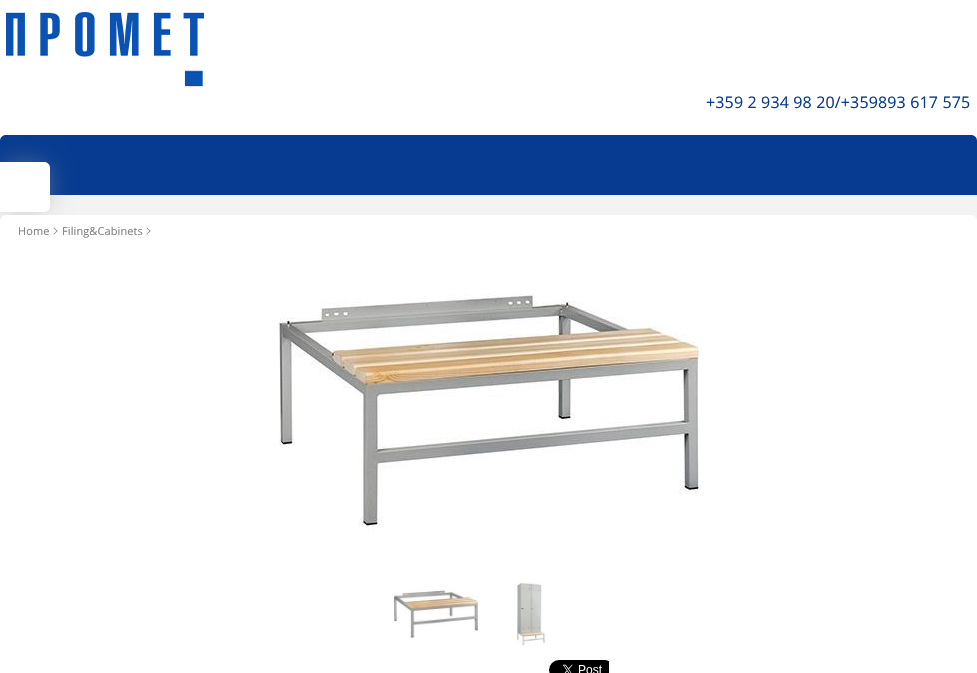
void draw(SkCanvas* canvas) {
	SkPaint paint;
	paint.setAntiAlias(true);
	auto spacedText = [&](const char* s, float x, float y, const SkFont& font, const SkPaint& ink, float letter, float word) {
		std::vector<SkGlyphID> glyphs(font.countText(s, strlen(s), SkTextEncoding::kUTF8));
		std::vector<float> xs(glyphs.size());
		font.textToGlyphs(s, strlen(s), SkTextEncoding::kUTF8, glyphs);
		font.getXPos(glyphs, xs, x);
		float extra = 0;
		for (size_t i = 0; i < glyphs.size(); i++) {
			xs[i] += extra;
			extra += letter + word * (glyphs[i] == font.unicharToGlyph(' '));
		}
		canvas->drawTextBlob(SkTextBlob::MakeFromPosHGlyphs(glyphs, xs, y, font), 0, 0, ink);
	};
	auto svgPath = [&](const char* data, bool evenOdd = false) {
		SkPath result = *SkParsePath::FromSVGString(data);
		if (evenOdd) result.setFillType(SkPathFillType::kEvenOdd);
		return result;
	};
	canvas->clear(0xfff3f3f3);
	paint.setColor(0xffffffff);
	canvas->drawRect(SkRect::MakeXYWH(0, 0, 977, 141), paint);
	canvas->drawImageRect(SkImages::DeferredFromEncodedData(SkData::MakeFromFileName("img1.png")), SkRect::MakeXYWH(6, 12, 198, 75), SkSamplingOptions());
	SkFont f1(fontMgr->matchFamilyStyle("Open Sans", SkFontStyle::Normal()), 16);
	f1.setSubpixel(true);
	paint.setColor(0xff063b91);
	spacedText("+359 2 934 98 20/+359893 617 575", 706, 108, f1, paint, 0.15, 0);
	canvas->drawPath(svgPath("M6 135H971C974.5 135 977 137.5 977 141V195H0V141C0 137.5 2.5 135 6 135Z"), paint);
	paint.setColor(0xff999999);
	paint.setMaskFilter(SkMaskFilter::MakeBlur(kNormal_SkBlurStyle, 15));
	canvas->drawRect(SkRect::MakeXYWH(8, 170, 34, 34), paint);
	paint.setMaskFilter(nullptr);
	paint.setColor(0xffffffff);
	canvas->drawPath(svgPath("M0 162H44C47.5 162 50 164.5 50 168V206C50 209.5 47.5 212 44 212H0Z"), paint);
	canvas->drawRoundRect(SkRect::MakeXYWH(0, 215, 977, 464), 6, 6, paint);
	SkFont f2(fontMgr->matchFamilyStyle("Open Sans", SkFontStyle::Normal()), 11);
	f2.setSubpixel(true);
	paint.setColor(0xff808080);
	spacedText("Home", 18, 235, f2, paint, 0.1, 0);
	canvas->drawPath(svgPath("M53.5 228L54 227.5L57.5 231L57 231.5Z"), paint);
	canvas->drawPath(svgPath("M53.5 234L57 230.5L57.5 231L54 234.5Z"), paint);
	spacedText("Filing&Cabinets", 62, 235, f2, paint, 0.1, 0);
	canvas->drawPath(svgPath("M146.5 228L147 227.5L150.5 231L150 231.5Z"), paint);
	canvas->drawPath(svgPath("M146.5 234L150 230.5L150.5 231L147 234.5Z"), paint);
	canvas->drawImageRect(SkImages::DeferredFromEncodedData(SkData::MakeFromFileName("img2.png")), SkRect::MakeXYWH(279, 293, 420, 239), SkSamplingOptions());
	canvas->drawImageRect(SkImages::DeferredFromEncodedData(SkData::MakeFromFileName("img3.png")), SkRect::MakeXYWH(394, 589, 84, 49), SkSamplingOptions());
	canvas->drawImageRect(SkImages::DeferredFromEncodedData(SkData::MakeFromFileName("img4.png")), SkRect::MakeXYWH(517, 582, 29, 64), SkSamplingOptions());
	canvas->drawImageRect(SkImages::DeferredFromEncodedData(SkData::MakeFromFileName("img5.png")), SkRect::MakeXYWH(549, 660, 60, 13), SkSamplingOptions());
}
